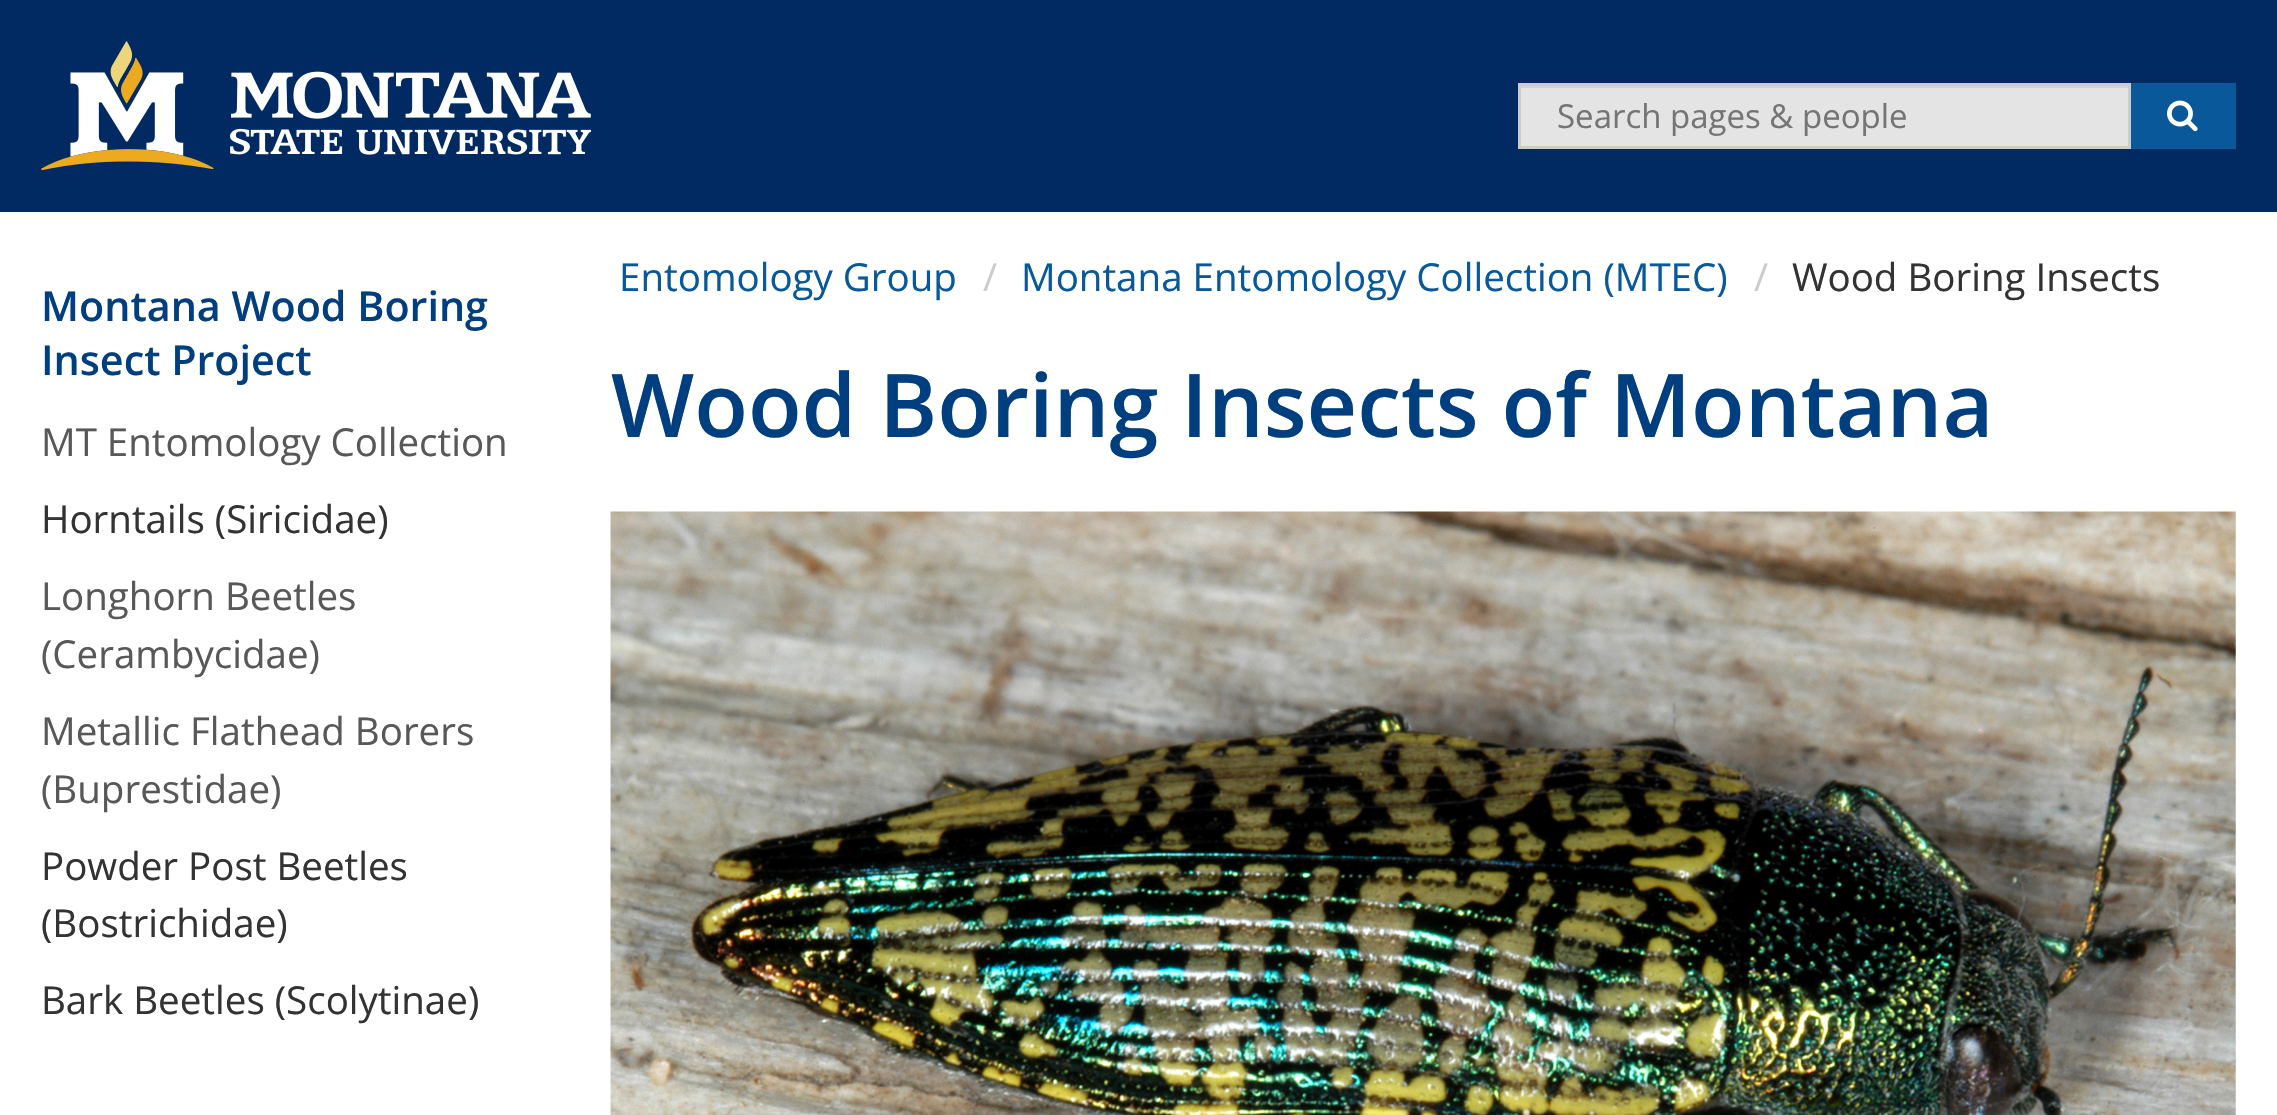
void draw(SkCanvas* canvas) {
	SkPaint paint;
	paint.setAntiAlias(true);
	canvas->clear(0xffffffff);
	paint.setColor(0xff002a61);
	canvas->drawRect(SkRect::MakeXYWH(0, 0, 2277, 212), paint);
	canvas->drawImageRect(SkImages::DeferredFromEncodedData(SkData::MakeFromFileName("img1.png")), SkRect::MakeXYWH(41, 41, 550, 130), SkSamplingOptions());
	paint.setColor(0xffe4e4e4);
	canvas->drawRect(SkRect::MakeXYWH(1521, 88, 607, 58), paint);
	paint.setColor(0xffd3d3d3);
	canvas->drawRect(SkRect::MakeXYWH(1521, 86, 608, 2), paint);
	paint.setStroke(true);
	paint.setStrokeWidth(3);
	paint.setColor(0xffcccccc);
	canvas->drawRect(SkRect::MakeXYWH(1519.5, 84.5, 610, 63), paint);
	SkFont f1(fontMgr->matchFamilyStyle("Open Sans", SkFontStyle::Normal()), 33);
	f1.setSubpixel(true);
	paint.setStroke(false);
	paint.setColor(0xff757575);
	canvas->drawString("Search pages & people", 1557, 128, f1, paint);
	paint.setColor(0xff09589a);
	canvas->drawRect(SkRect::MakeXYWH(2131, 83, 105, 66), paint);
	canvas->drawImageRect(SkImages::DeferredFromEncodedData(SkData::MakeFromFileName("img2.png")), SkRect::MakeXYWH(2167, 100, 31, 32), SkSamplingOptions());
	SkFont f2(fontMgr->matchFamilyStyle("Open Sans", SkFontStyle(600, SkFontStyle::kNormal_Width, SkFontStyle::kUpright_Slant)), 41.25);
	f2.setSubpixel(true);
	paint.setColor(0xff003f7f);
	canvas->drawString("Montana Wood Boring", 41, 321, f2, paint);
	canvas->drawString("Insect Project", 41, 375, f2, paint);
	SkFont f3(fontMgr->matchFamilyStyle("Open Sans", SkFontStyle::Normal()), 38.5);
	f3.setSubpixel(true);
	paint.setColor(0xff585858);
	canvas->drawString("MT Entomology Collection", 41, 456, f3, paint);
	paint.setColor(0xff333333);
	canvas->drawString("Horntails (Siricidae)", 41, 533, f3, paint);
	paint.setColor(0xff585858);
	canvas->drawString("Longhorn Beetles", 41, 610, f3, paint);
	canvas->drawString("(Cerambycidae)", 41, 668, f3, paint);
	canvas->drawString("Metallic Flathead Borers", 41, 745, f3, paint);
	canvas->drawString("(Buprestidae)", 41, 803, f3, paint);
	paint.setColor(0xff333333);
	canvas->drawString("Powder Post Beetles", 41, 880, f3, paint);
	canvas->drawString("(Bostrichidae)", 41, 937, f3, paint);
	canvas->drawString("Bark Beetles (Scolytinae)", 41, 1014, f3, paint);
	paint.setColor(0xff09589a);
	canvas->drawString("Entomology Group", 619, 291, f3, paint);
	paint.setColor(0xffcccccc);
	canvas->drawString("/", 983, 291, f3, paint);
	paint.setColor(0xff09589a);
	canvas->drawString("Montana Entomology Collection (MTEC)", 1021, 291, f3, paint);
	paint.setColor(0xffcccccc);
	canvas->drawString("/", 1754, 291, f3, paint);
	paint.setColor(0xff333333);
	canvas->drawString("Wood Boring Insects", 1792, 291, f3, paint);
	SkFont f4(fontMgr->matchFamilyStyle("Open Sans", SkFontStyle(600, SkFontStyle::kNormal_Width, SkFontStyle::kUpright_Slant)), 88);
	f4.setSubpixel(true);
	paint.setColor(0xff003f7f);
	canvas->drawString("Wood Boring Insects of Montana", 611, 437, f4, paint);
	canvas->drawImageRect(SkImages::DeferredFromEncodedData(SkData::MakeFromFileName("img3.png")), SkRect::MakeXYWH(610, 511, 1626, 604), SkSamplingOptions());
}
